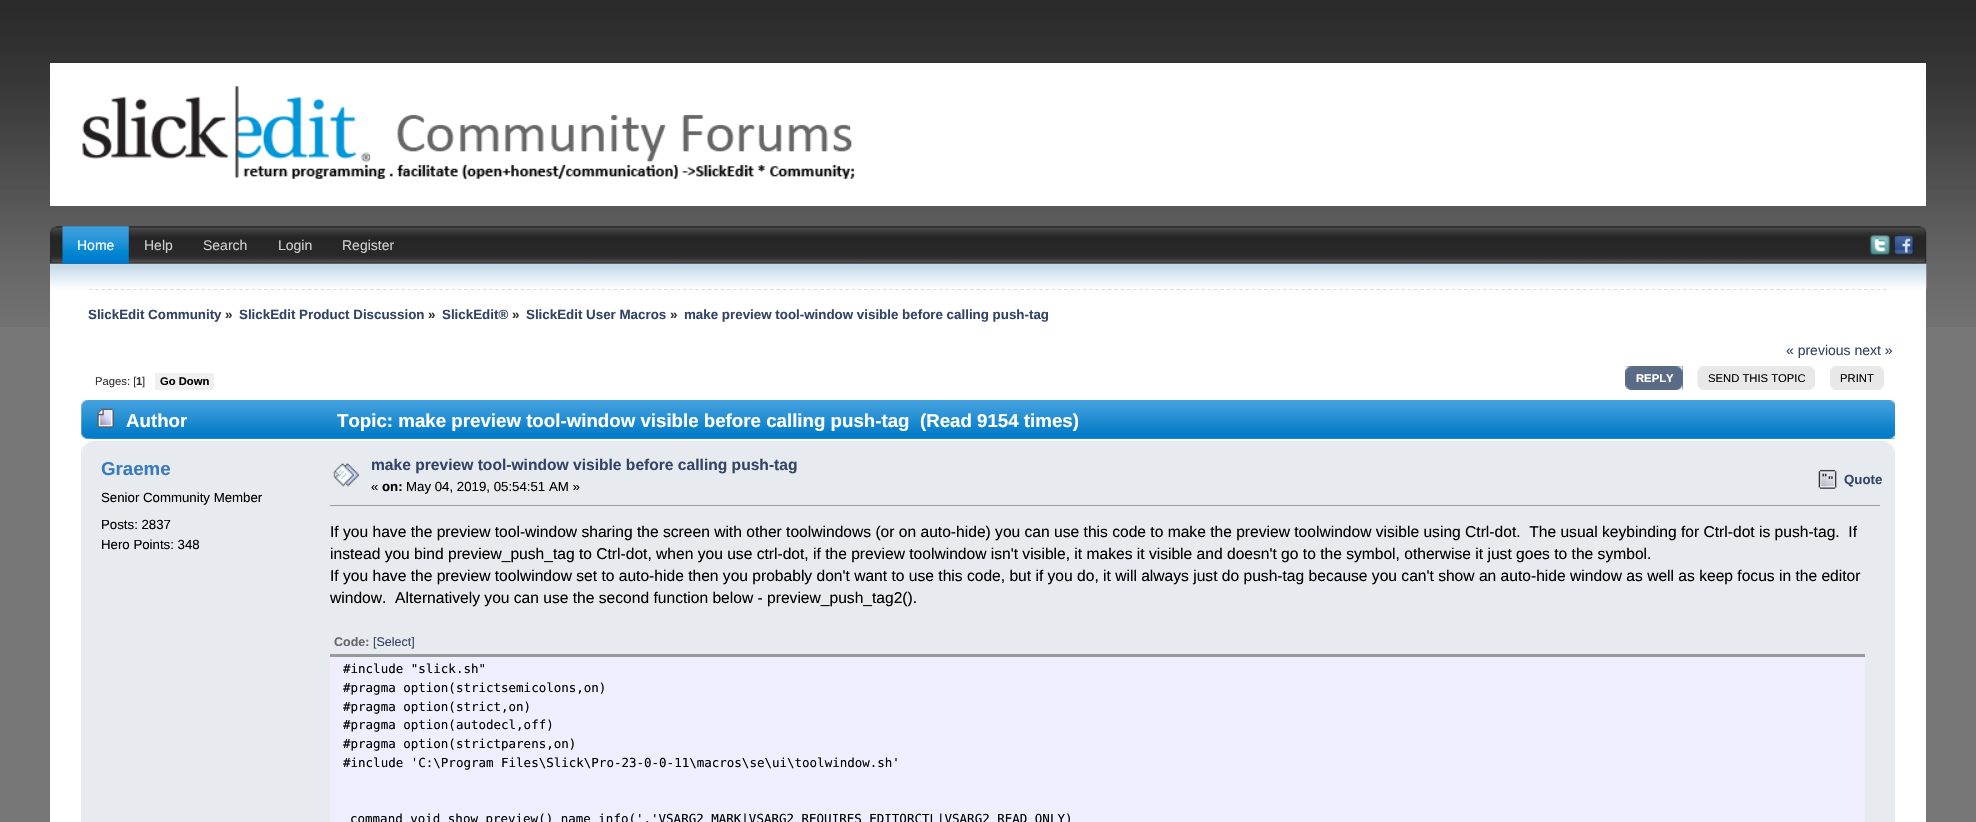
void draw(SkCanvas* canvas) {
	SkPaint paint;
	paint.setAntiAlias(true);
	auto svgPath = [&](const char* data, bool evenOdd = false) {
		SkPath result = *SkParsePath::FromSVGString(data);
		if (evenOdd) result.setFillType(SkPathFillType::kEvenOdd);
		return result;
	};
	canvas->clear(0xff777777);
	canvas->drawImageRect(SkImages::DeferredFromEncodedData(SkData::MakeFromFileName("img1.png")), SkRect::MakeXYWH(0, 0, 1976, 327), SkSamplingOptions());
	paint.setColor(0xffffffff);
	canvas->drawRect(SkRect::MakeXYWH(50, 63, 1876, 143), paint);
	canvas->drawImageRect(SkImages::DeferredFromEncodedData(SkData::MakeFromFileName("img2.png")), SkRect::MakeXYWH(82, 86, 774, 93), SkSamplingOptions());
	canvas->drawImageRect(SkImages::DeferredFromEncodedData(SkData::MakeFromFileName("img3.png")), SkRect::MakeXYWH(50, 226, 14, 38), SkSamplingOptions());
	canvas->drawImageRect(SkImages::DeferredFromEncodedData(SkData::MakeFromFileName("img4.png")), SkRect::MakeXYWH(1912, 226, 15, 38), SkSamplingOptions());
	canvas->drawImageRect(SkImages::DeferredFromEncodedData(SkData::MakeFromFileName("img5.png")), SkRect::MakeXYWH(62, 226, 1852, 38), SkSamplingOptions());
	canvas->drawRect(SkRect::MakeXYWH(50, 288, 1876, 534), paint);
	canvas->drawImageRect(SkImages::DeferredFromEncodedData(SkData::MakeFromFileName("img9.png")), SkRect::MakeXYWH(50, 263, 1877, 26), SkSamplingOptions());
	canvas->drawImageRect(SkImages::DeferredFromEncodedData(SkData::MakeFromFileName("img6.png")), SkRect::MakeXYWH(62, 226, 67, 38), SkSamplingOptions());
	SkFont f1(fontMgr->matchFamilyStyle("Liberation Sans", SkFontStyle::Normal()), 14);
	f1.setSubpixel(true);
	canvas->drawString("Home", 77, 250, f1, paint);
	paint.setColor(0xffcecece);
	canvas->drawString("Help", 144, 250, f1, paint);
	canvas->drawString("Search", 203, 250, f1, paint);
	canvas->drawString("Login", 278, 250, f1, paint);
	canvas->drawString("Register", 342, 250, f1, paint);
	canvas->drawImageRect(SkImages::DeferredFromEncodedData(SkData::MakeFromFileName("img7.png")), SkRect::MakeXYWH(1870, 235, 20, 20), SkSamplingOptions());
	canvas->drawImageRect(SkImages::DeferredFromEncodedData(SkData::MakeFromFileName("img8.png")), SkRect::MakeXYWH(1893, 235, 21, 20), SkSamplingOptions());
	paint.setStroke(true);
	paint.setStrokeWidth(1.2);
	paint.setColor(0xffdddddd);
	paint.setPathEffect(SkDashPathEffect::Make({{3.75f, 2.5f}}, 0));
	canvas->drawPath(svgPath("M89 289.5H1887.5"), paint);
	paint.setPathEffect(nullptr);
	SkFont f2(fontMgr->matchFamilyStyle("Liberation Sans", SkFontStyle::Bold()), 13.35);
	f2.setSubpixel(true);
	paint.setStroke(false);
	paint.setColor(0xff334466);
	canvas->drawString("SlickEdit Community", 88, 319, f2, paint);
	paint.setColor(0xff333333);
	canvas->drawString("»", 225, 319, f2, paint);
	paint.setColor(0xff334466);
	canvas->drawString("SlickEdit Product Discussion", 239, 319, f2, paint);
	paint.setColor(0xff333333);
	canvas->drawString("»", 428, 319, f2, paint);
	paint.setColor(0xff334466);
	canvas->drawString("SlickEdit®", 442, 319, f2, paint);
	paint.setColor(0xff333333);
	canvas->drawString("»", 512, 319, f2, paint);
	paint.setColor(0xff334466);
	canvas->drawString("SlickEdit User Macros", 526, 319, f2, paint);
	paint.setColor(0xff333333);
	canvas->drawString("»", 670, 319, f2, paint);
	paint.setColor(0xff334466);
	canvas->drawString("make preview tool-window visible before calling push-tag", 684, 319, f2, paint);
	canvas->drawString("« previous next »", 1786, 355, f1, paint);
	SkFont f3(fontMgr->matchFamilyStyle("Liberation Sans", SkFontStyle::Normal()), 11.25);
	f3.setSubpixel(true);
	paint.setColor(0xff333333);
	canvas->drawString("Pages: [", 95, 385, f3, paint);
	SkFont f4(fontMgr->matchFamilyStyle("Liberation Sans", SkFontStyle::Bold()), 11.25);
	f4.setSubpixel(true);
	canvas->drawString("1", 136, 385, f4, paint);
	canvas->drawString("]", 142, 385, f3, paint);
	paint.setColor(0xfff0f0f0);
	canvas->drawRect(SkRect::MakeXYWH(155, 373, 59, 17), paint);
	paint.setColor(0xff000000);
	canvas->drawString("Go Down", 160, 385, f4, paint);
	paint.setColor(0xff5a6c85);
	canvas->drawRect(SkRect::MakeXYWH(1625, 366, 58, 24), paint);
	canvas->drawImageRect(SkImages::DeferredFromEncodedData(SkData::MakeFromFileName("img10.png")), SkRect::MakeXYWH(1625, 366, 7, 24), SkSamplingOptions());
	canvas->drawImageRect(SkImages::DeferredFromEncodedData(SkData::MakeFromFileName("img11.png")), SkRect::MakeXYWH(1676, 366, 7, 24), SkSamplingOptions());
	paint.setColor(0xffffffff);
	canvas->drawString("REPLY", 1636, 382, f4, paint);
	paint.setColor(0xffe8e8e8);
	canvas->drawRect(SkRect::MakeXYWH(1698, 366, 117, 24), paint);
	canvas->drawImageRect(SkImages::DeferredFromEncodedData(SkData::MakeFromFileName("img12.png")), SkRect::MakeXYWH(1697, 366, 5, 24), SkSamplingOptions());
	canvas->drawImageRect(SkImages::DeferredFromEncodedData(SkData::MakeFromFileName("img13.png")), SkRect::MakeXYWH(1810, 366, 5, 24), SkSamplingOptions());
	paint.setColor(0xff000000);
	canvas->drawString("SEND THIS TOPIC", 1708, 382, f3, paint);
	paint.setColor(0xffe8e8e8);
	canvas->drawRect(SkRect::MakeXYWH(1830, 366, 54, 24), paint);
	canvas->drawImageRect(SkImages::DeferredFromEncodedData(SkData::MakeFromFileName("img14.png")), SkRect::MakeXYWH(1830, 366, 5, 24), SkSamplingOptions());
	canvas->drawImageRect(SkImages::DeferredFromEncodedData(SkData::MakeFromFileName("img15.png")), SkRect::MakeXYWH(1879, 366, 5, 24), SkSamplingOptions());
	paint.setColor(0xff000000);
	canvas->drawString("PRINT", 1840, 382, f3, paint);
	canvas->drawImageRect(SkImages::DeferredFromEncodedData(SkData::MakeFromFileName("img16.png")), SkRect::MakeXYWH(81, 400, 1814, 39), SkSamplingOptions());
	canvas->drawImageRect(SkImages::DeferredFromEncodedData(SkData::MakeFromFileName("img17.png")), SkRect::MakeXYWH(92, 400, 1803, 39), SkSamplingOptions());
	canvas->drawImageRect(SkImages::DeferredFromEncodedData(SkData::MakeFromFileName("img18.png")), SkRect::MakeXYWH(97, 408, 17, 20), SkSamplingOptions());
	SkFont f5(fontMgr->matchFamilyStyle("Liberation Sans", SkFontStyle::Bold()), 18.7);
	f5.setSubpixel(true);
	paint.setColor(0xffffffff);
	canvas->drawString("Author", 126, 427, f5, paint);
	canvas->drawString("Topic: make preview tool-window visible before calling push-tag  (Read 9154 times)", 337, 427, f5, paint);
	paint.setColor(0xffe7eaef);
	canvas->drawRect(SkRect::MakeXYWH(81, 441, 1814, 381), paint);
	canvas->drawImageRect(SkImages::DeferredFromEncodedData(SkData::MakeFromFileName("img19.png")), SkRect::MakeXYWH(81, 441, 10, 10), SkSamplingOptions());
	canvas->drawImageRect(SkImages::DeferredFromEncodedData(SkData::MakeFromFileName("img20.png")), SkRect::MakeXYWH(1886, 441, 9, 10), SkSamplingOptions());
	paint.setColor(0xff377abd);
	canvas->drawString("Graeme", 101, 475, f5, paint);
	SkFont f6(fontMgr->matchFamilyStyle("Liberation Sans", SkFontStyle::Normal()), 13.25);
	f6.setSubpixel(true);
	paint.setColor(0xff000000);
	canvas->drawString("Senior Community Member", 101, 502, f6, paint);
	canvas->drawString("Posts: 2837", 101, 529, f6, paint);
	canvas->drawString("Hero Points: 348", 101, 549, f6, paint);
	canvas->drawImageRect(SkImages::DeferredFromEncodedData(SkData::MakeFromFileName("img21.png")), SkRect::MakeXYWH(333, 463, 26, 24), SkSamplingOptions());
	SkFont f7(fontMgr->matchFamilyStyle("Liberation Sans", SkFontStyle::Bold()), 15.6);
	f7.setSubpixel(true);
	paint.setColor(0xff334466);
	canvas->drawString("make preview tool-window visible before calling push-tag", 371, 470, f7, paint);
	paint.setColor(0xff000000);
	canvas->drawString("«", 371, 491, f6, paint);
	SkFont f8(fontMgr->matchFamilyStyle("Liberation Sans", SkFontStyle::Bold()), 13.25);
	f8.setSubpixel(true);
	canvas->drawString("on:", 382, 491, f8, paint);
	canvas->drawString("May 04, 2019, 05:54:51 AM »", 406, 491, f6, paint);
	canvas->drawImageRect(SkImages::DeferredFromEncodedData(SkData::MakeFromFileName("img22.png")), SkRect::MakeXYWH(1818, 469, 19, 20), SkSamplingOptions());
	paint.setColor(0xff334466);
	canvas->drawString("Quote", 1844, 484, f8, paint);
	paint.setColor(0xff9999aa);
	canvas->drawRect(SkRect::MakeXYWH(330, 505, 1550, 1), paint);
	SkFont f9(fontMgr->matchFamilyStyle("Liberation Sans", SkFontStyle::Normal()), 15.6);
	f9.setSubpixel(true);
	paint.setColor(0xff000000);
	canvas->drawString("If you have the preview tool-window sharing the screen with other toolwindows (or on auto-hide) you can use this code to make the preview toolwindow visible using Ctrl-dot.  The usual keybinding for Ctrl-dot is push-tag.  If", 330, 537, f9, paint);
	canvas->drawString("instead you bind preview_push_tag to Ctrl-dot, when you use ctrl-dot, if the preview toolwindow isn't visible, it makes it visible and doesn't go to the symbol, otherwise it just goes to the symbol.", 330, 559, f9, paint);
	canvas->drawString("If you have the preview toolwindow set to auto-hide then you probably don't want to use this code, but if you do, it will always just do push-tag because you can't show an auto-hide window as well as keep focus in the editor", 330, 581, f9, paint);
	canvas->drawString("window.  Alternatively you can use the second function below - preview_push_tag2().", 330, 603, f9, paint);
	SkFont f10(fontMgr->matchFamilyStyle("Liberation Sans", SkFontStyle::Bold()), 12.5);
	f10.setSubpixel(true);
	paint.setColor(0xff666666);
	canvas->drawString("Code:", 334, 646, f10, paint);
	SkFont f11(fontMgr->matchFamilyStyle("Liberation Sans", SkFontStyle::Normal()), 12.5);
	f11.setSubpixel(true);
	paint.setColor(0xff334466);
	canvas->drawString("[Select]", 373, 646, f11, paint);
	paint.setColor(0xffeeeeff);
	canvas->drawRect(SkRect::MakeXYWH(330, 657, 1535, 165), paint);
	paint.setColor(0xff999999);
	canvas->drawRect(SkRect::MakeXYWH(330, 654, 1535, 3), paint);
	SkFont f12(fontMgr->matchFamilyStyle("DejaVu Sans Mono", SkFontStyle::Normal()), 12.5);
	f12.setSubpixel(true);
	paint.setColor(0xff000000);
	canvas->drawString("#include \"slick.sh\"", 343, 673, f12, paint);
	canvas->drawString("#pragma option(strictsemicolons,on)", 343, 692, f12, paint);
	canvas->drawString("#pragma option(strict,on)", 343, 711, f12, paint);
	canvas->drawString("#pragma option(autodecl,off)", 343, 729, f12, paint);
	canvas->drawString("#pragma option(strictparens,on)", 343, 748, f12, paint);
	canvas->drawString("#include 'C:\\Program Files\\Slick\\Pro-23-0-0-11\\macros\\se\\ui\\toolwindow.sh'", 343, 767, f12, paint);
	canvas->drawString("command void show_preview() name_info(','VSARG2_MARK|VSARG2_REQUIRES_EDITORCTL|VSARG2_READ_ONLY)", 350, 823, f12, paint);
}
